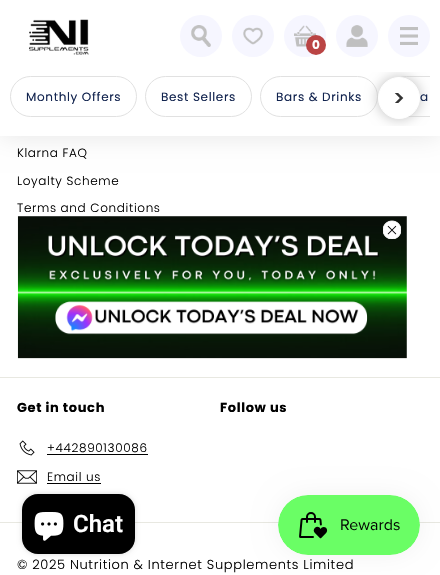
void draw(SkCanvas* canvas) {
	SkPaint paint;
	paint.setAntiAlias(true);
	auto spacedText = [&](const char* s, float x, float y, const SkFont& font, const SkPaint& ink, float letter, float word) {
		std::vector<SkGlyphID> glyphs(font.countText(s, strlen(s), SkTextEncoding::kUTF8));
		std::vector<float> xs(glyphs.size());
		font.textToGlyphs(s, strlen(s), SkTextEncoding::kUTF8, glyphs);
		font.getXPos(glyphs, xs, x);
		float extra = 0;
		for (size_t i = 0; i < glyphs.size(); i++) {
			xs[i] += extra;
			extra += letter + word * (glyphs[i] == font.unicharToGlyph(' '));
		}
		canvas->drawTextBlob(SkTextBlob::MakeFromPosHGlyphs(glyphs, xs, y, font), 0, 0, ink);
	};
	canvas->clear(0xffffffff);
	paint.setColor(0x1a000000);
	paint.setMaskFilter(SkMaskFilter::MakeBlur(kNormal_SkBlurStyle, 12.5));
	canvas->drawRect(SkRect::MakeXYWH(0, 0, 440, 136), paint);
	paint.setMaskFilter(nullptr);
	paint.setColor(0xffffffff);
	canvas->drawRect(SkRect::MakeXYWH(0, 0, 440, 136), paint);
	canvas->drawImageRect(SkImages::DeferredFromEncodedData(SkData::MakeFromFileName("img1.png")), SkRect::MakeXYWH(29, 19, 60, 36), SkSamplingOptions());
	paint.setColor(0xfff6f6ff);
	canvas->drawCircle(201, 36, 21, paint);
	canvas->drawImageRect(SkImages::DeferredFromEncodedData(SkData::MakeFromFileName("img2.png")), SkRect::MakeXYWH(191, 25, 20, 22), SkSamplingOptions());
	canvas->drawCircle(253, 36, 21, paint);
	canvas->drawImageRect(SkImages::DeferredFromEncodedData(SkData::MakeFromFileName("img3.png")), SkRect::MakeXYWH(243, 27, 20, 18), SkSamplingOptions());
	canvas->drawCircle(305, 36, 21, paint);
	canvas->drawImageRect(SkImages::DeferredFromEncodedData(SkData::MakeFromFileName("img4.png")), SkRect::MakeXYWH(294, 25, 22, 22), SkSamplingOptions());
	paint.setColor(0xffba4444);
	canvas->drawCircle(316, 45, 10, paint);
	SkFont f1(fontMgr->matchFamilyStyle("Poppins", SkFontStyle::Bold()), 12);
	f1.setSubpixel(true);
	paint.setColor(0xffffffff);
	canvas->drawString("0", 312, 49, f1, paint);
	paint.setColor(0xfff6f6ff);
	canvas->drawCircle(357, 36, 21, paint);
	canvas->drawImageRect(SkImages::DeferredFromEncodedData(SkData::MakeFromFileName("img5.png")), SkRect::MakeXYWH(346, 25, 22, 22), SkSamplingOptions());
	canvas->drawCircle(409, 36, 21, paint);
	canvas->drawImageRect(SkImages::DeferredFromEncodedData(SkData::MakeFromFileName("img6.png")), SkRect::MakeXYWH(400, 27, 18, 18), SkSamplingOptions());
	paint.setStroke(true);
	paint.setStrokeWidth(1);
	paint.setColor(0xffe1e1e1);
	canvas->drawRoundRect(SkRect::MakeXYWH(260.5, 76.5, 117, 40), 20, 20, paint);
	canvas->save();
	canvas->clipRect(SkRect::MakeXYWH(10, 72, 420, 54));
	canvas->drawRoundRect(SkRect::MakeXYWH(386.5, 76.5, 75, 40), 20, 20, paint);
	canvas->restore();
	canvas->save();
	canvas->clipRect(SkRect::MakeXYWH(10, 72, 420, 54));
	paint.setStroke(false);
	paint.setColor(0xffc0c0c0);
	paint.setMaskFilter(SkMaskFilter::MakeBlur(kNormal_SkBlurStyle, 6.5));
	canvas->drawRoundRect(SkRect::MakeXYWH(378, 77, 42, 42), 21, 21, paint);
	paint.setMaskFilter(nullptr);
	canvas->restore();
	paint.setColor(0xffffffff);
	canvas->drawCircle(399, 98, 20.5, paint);
	paint.setStroke(true);
	canvas->drawCircle(399, 98, 20.5, paint);
	canvas->drawImageRect(SkImages::DeferredFromEncodedData(SkData::MakeFromFileName("img7.png")), SkRect::MakeXYWH(394, 93, 10, 10), SkSamplingOptions());
	paint.setColor(0xffe1e1e1);
	canvas->drawRoundRect(SkRect::MakeXYWH(10.5, 76.5, 126, 40), 20, 20, paint);
	SkFont f2(fontMgr->matchFamilyStyle("Poppins", SkFontStyle::Normal()), 12);
	f2.setSubpixel(true);
	paint.setStroke(false);
	paint.setColor(0xff12244f);
	spacedText("Monthly Offers", 26, 101, f2, paint, 0.65, 0);
	paint.setStroke(true);
	paint.setColor(0xffe1e1e1);
	canvas->drawRoundRect(SkRect::MakeXYWH(145.5, 76.5, 106, 40), 20, 20, paint);
	paint.setStroke(false);
	paint.setColor(0xff12244f);
	spacedText("Best Sellers", 161, 101, f2, paint, 0.65, 0);
	spacedText("Bars & Drinks", 276, 101, f2, paint, 0.65, 0);
	spacedText("a", 420, 101, f2, paint, 0.65, 0);
	SkFont f3(fontMgr->matchFamilyStyle("Poppins", SkFontStyle(300, SkFontStyle::kNormal_Width, SkFontStyle::kUpright_Slant)), 12);
	f3.setSubpixel(true);
	paint.setColor(0xff000000);
	spacedText("Klarna FAQ", 17, 157, f3, paint, 0.65, 0);
	spacedText("Loyalty Scheme", 17, 185, f3, paint, 0.65, 0);
	spacedText("Terms and Conditions", 17, 212, f3, paint, 0.65, 0);
	paint.setColor(0xffe8e8e1);
	canvas->drawRect(SkRect::MakeXYWH(0, 377, 440, 1), paint);
	SkFont f4(fontMgr->matchFamilyStyle("Poppins", SkFontStyle::Bold()), 13);
	f4.setSubpixel(true);
	paint.setColor(0xff000000);
	spacedText("Get in touch", 17, 412, f4, paint, 0.65, 0);
	canvas->drawImageRect(SkImages::DeferredFromEncodedData(SkData::MakeFromFileName("img8.png")), SkRect::MakeXYWH(19, 440, 16, 16), SkSamplingOptions());
	spacedText("+442890130086", 47, 452, f3, paint, 0.65, 0);
	canvas->drawRect(SkRect::MakeXYWH(47, 454, 101, 1), paint);
	canvas->drawImageRect(SkImages::DeferredFromEncodedData(SkData::MakeFromFileName("img9.png")), SkRect::MakeXYWH(17, 470, 20, 14), SkSamplingOptions());
	spacedText("Email us", 47, 481, f3, paint, 0.65, 0);
	canvas->drawRect(SkRect::MakeXYWH(47, 483, 54, 1), paint);
	spacedText("Follow us", 220, 412, f4, paint, 0.65, 0);
	paint.setColor(0xffe8e8e1);
	canvas->drawRect(SkRect::MakeXYWH(0, 522, 440, 1), paint);
	SkFont f5(fontMgr->matchFamilyStyle("Poppins", SkFontStyle(300, SkFontStyle::kNormal_Width, SkFontStyle::kUpright_Slant)), 13);
	f5.setSubpixel(true);
	paint.setColor(0xff000000);
	spacedText("© 2025 Nutrition & Internet Supplements Limited", 17, 569, f5, paint, 0.65, 0);
	canvas->drawImageRect(SkImages::DeferredFromEncodedData(SkData::MakeFromFileName("img10.png")), SkRect::MakeXYWH(17, 216, 390, 143), SkSamplingOptions());
	canvas->drawImageRect(SkImages::DeferredFromEncodedData(SkData::MakeFromFileName("img11.png")), SkRect::MakeXYWH(383, 220, 18, 19), SkSamplingOptions());
	paint.setColor(0x26000000);
	paint.setMaskFilter(SkMaskFilter::MakeBlur(kNormal_SkBlurStyle, 2.5));
	canvas->drawRoundRect(SkRect::MakeXYWH(22, 494, 113, 60), 16, 16, paint);
	paint.setMaskFilter(nullptr);
	paint.setColor(0xff000000);
	canvas->drawRoundRect(SkRect::MakeXYWH(22, 494, 113, 60), 16, 16, paint);
	canvas->drawImageRect(SkImages::DeferredFromEncodedData(SkData::MakeFromFileName("img12.png")), SkRect::MakeXYWH(34, 512, 30, 29), SkSamplingOptions());
	SkFont f6(fontMgr->matchFamilyStyle("Roboto", SkFontStyle(600, SkFontStyle::kNormal_Width, SkFontStyle::kUpright_Slant)), 24);
	f6.setSubpixel(true);
	paint.setColor(0xffffffff);
	canvas->drawString("Chat", 73, 532, f6, paint);
	paint.setColor(0x0d000000);
	paint.setMaskFilter(SkMaskFilter::MakeBlur(kNormal_SkBlurStyle, 12.5));
	canvas->drawRoundRect(SkRect::MakeXYWH(278, 495, 142, 60), 30, 30, paint);
	paint.setMaskFilter(nullptr);
	canvas->drawImageRect(SkImages::DeferredFromEncodedData(SkData::MakeFromFileName("img13.png")), SkRect::MakeXYWH(278, 495, 142, 60), SkSamplingOptions());
}
